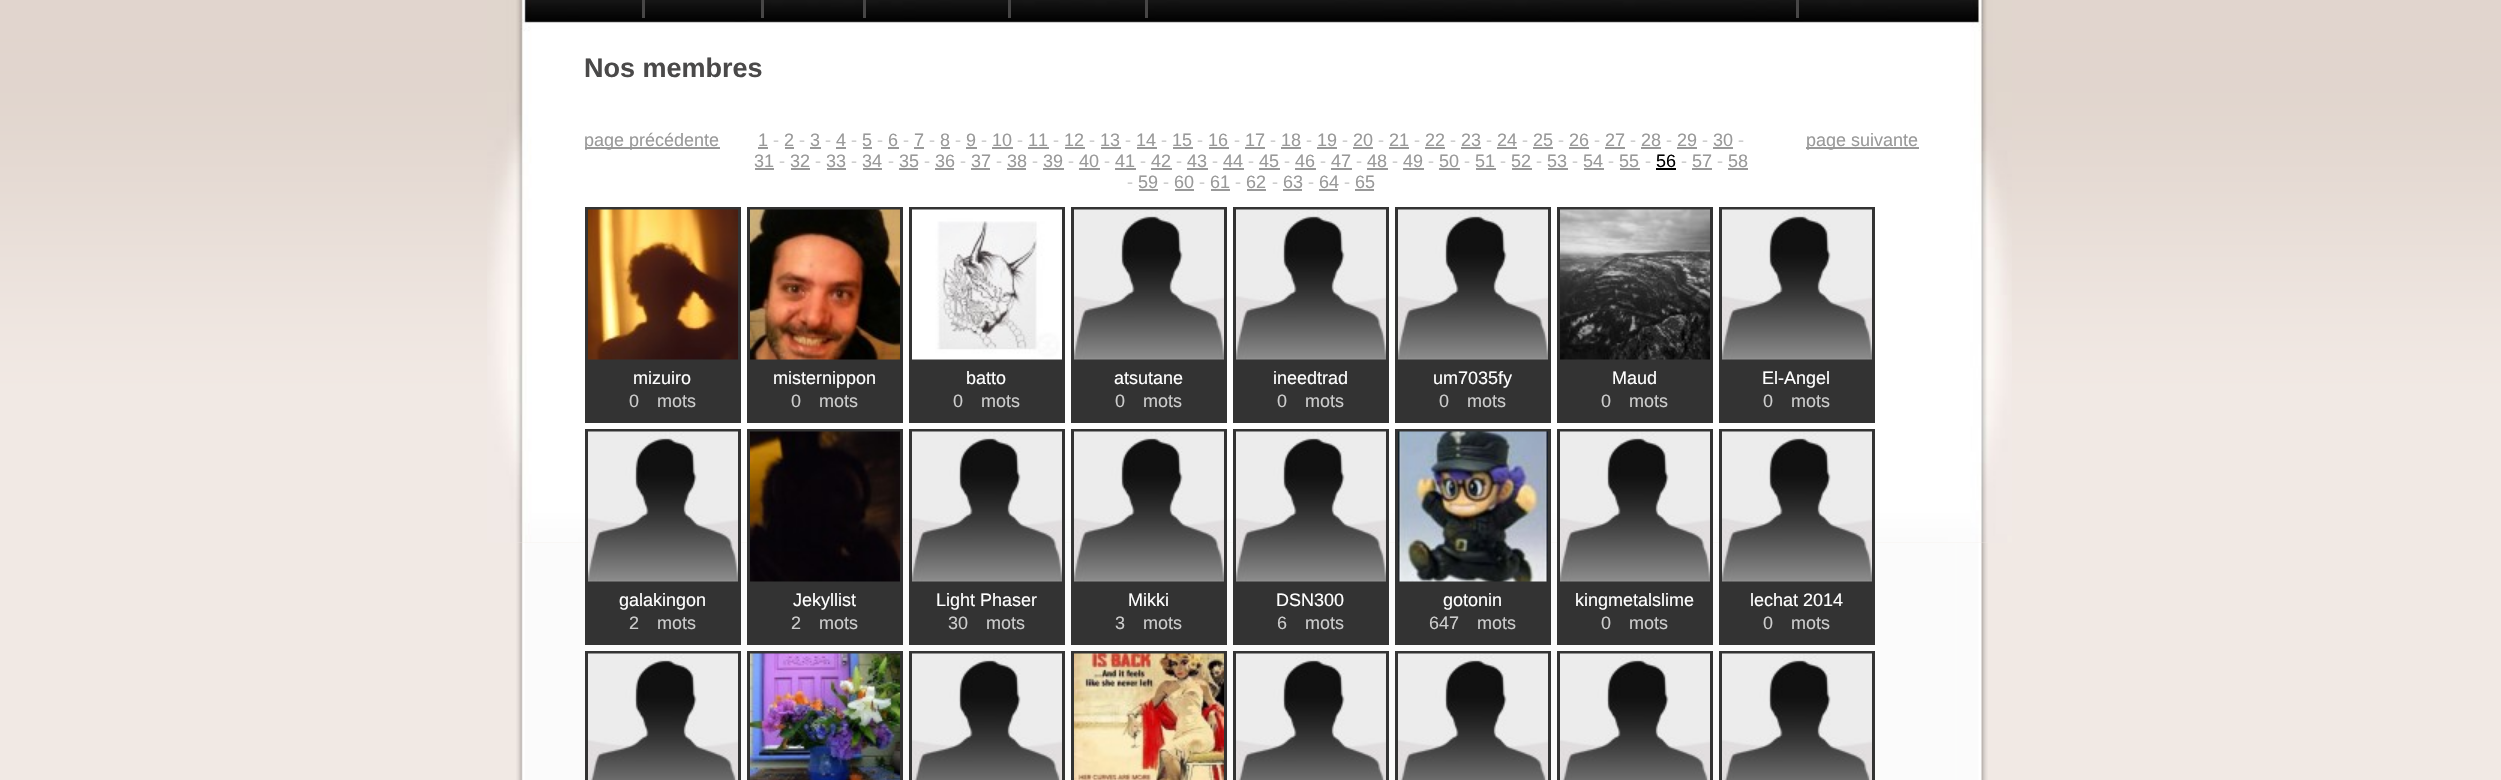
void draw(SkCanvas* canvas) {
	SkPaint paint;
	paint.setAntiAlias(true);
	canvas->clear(0xfff1e9e4);
	canvas->drawImageRect(SkImages::DeferredFromEncodedData(SkData::MakeFromFileName("img1.png")), SkRect::MakeXYWH(516, 542, 1472, 238), SkSamplingOptions());
	canvas->drawImageRect(SkImages::DeferredFromEncodedData(SkData::MakeFromFileName("img2.png")), SkRect::MakeXYWH(0, 0, 2501, 543), SkSamplingOptions());
	canvas->drawImageRect(SkImages::DeferredFromEncodedData(SkData::MakeFromFileName("img3.png")), SkRect::MakeXYWH(487, 0, 1525, 543), SkSamplingOptions());
	paint.setColor(0xff474646);
	canvas->drawRect(SkRect::MakeXYWH(642, 0, 3, 18), paint);
	canvas->drawRect(SkRect::MakeXYWH(761, 0, 3, 18), paint);
	canvas->drawRect(SkRect::MakeXYWH(863, 0, 3, 18), paint);
	canvas->drawRect(SkRect::MakeXYWH(1008, 0, 3, 18), paint);
	canvas->drawRect(SkRect::MakeXYWH(1145, 0, 3, 18), paint);
	canvas->drawRect(SkRect::MakeXYWH(1796, 0, 3, 18), paint);
	SkFont f1(fontMgr->matchFamilyStyle("Liberation Sans", SkFontStyle::Bold()), 27);
	f1.setSubpixel(true);
	paint.setColor(0xff4a4949);
	canvas->drawString("Nos membres", 584, 77, f1, paint);
	paint.setColor(0xff999999);
	canvas->drawRect(SkRect::MakeXYWH(585, 147, 135, 2), paint);
	SkFont f2(fontMgr->matchFamilyStyle("Liberation Sans", SkFontStyle::Normal()), 18);
	f2.setSubpixel(true);
	canvas->drawString("page précédente", 584, 146, f2, paint);
	canvas->drawString("1", 758, 146, f2, paint);
	canvas->drawRect(SkRect::MakeXYWH(758, 147, 10, 2), paint);
	paint.setColor(0xffcccccc);
	canvas->drawString("-", 773, 146, f2, paint);
	paint.setColor(0xff999999);
	canvas->drawString("2", 784, 146, f2, paint);
	canvas->drawRect(SkRect::MakeXYWH(785, 147, 9, 2), paint);
	paint.setColor(0xffcccccc);
	canvas->drawString("-", 799, 146, f2, paint);
	paint.setColor(0xff999999);
	canvas->drawString("3", 810, 146, f2, paint);
	canvas->drawRect(SkRect::MakeXYWH(810, 147, 11, 2), paint);
	paint.setColor(0xffcccccc);
	canvas->drawString("-", 825, 146, f2, paint);
	paint.setColor(0xff999999);
	canvas->drawString("4", 836, 146, f2, paint);
	canvas->drawRect(SkRect::MakeXYWH(836, 147, 10, 2), paint);
	paint.setColor(0xffcccccc);
	canvas->drawString("-", 851, 146, f2, paint);
	paint.setColor(0xff999999);
	canvas->drawString("5", 862, 146, f2, paint);
	canvas->drawRect(SkRect::MakeXYWH(863, 147, 9, 2), paint);
	paint.setColor(0xffcccccc);
	canvas->drawString("-", 877, 146, f2, paint);
	paint.setColor(0xff999999);
	canvas->drawString("6", 888, 146, f2, paint);
	canvas->drawRect(SkRect::MakeXYWH(888, 147, 11, 2), paint);
	paint.setColor(0xffcccccc);
	canvas->drawString("-", 903, 146, f2, paint);
	paint.setColor(0xff999999);
	canvas->drawString("7", 914, 146, f2, paint);
	canvas->drawRect(SkRect::MakeXYWH(914, 147, 10, 2), paint);
	paint.setColor(0xffcccccc);
	canvas->drawString("-", 929, 146, f2, paint);
	paint.setColor(0xff999999);
	canvas->drawString("8", 940, 146, f2, paint);
	canvas->drawRect(SkRect::MakeXYWH(941, 147, 9, 2), paint);
	paint.setColor(0xffcccccc);
	canvas->drawString("-", 955, 146, f2, paint);
	paint.setColor(0xff999999);
	canvas->drawString("9", 966, 146, f2, paint);
	canvas->drawRect(SkRect::MakeXYWH(966, 147, 11, 2), paint);
	paint.setColor(0xffcccccc);
	canvas->drawString("-", 981, 146, f2, paint);
	paint.setColor(0xff999999);
	canvas->drawString("10", 992, 146, f2, paint);
	canvas->drawRect(SkRect::MakeXYWH(992, 147, 21, 2), paint);
	paint.setColor(0xffcccccc);
	canvas->drawString("-", 1017, 146, f2, paint);
	paint.setColor(0xff999999);
	canvas->drawString("11", 1028, 146, f2, paint);
	canvas->drawRect(SkRect::MakeXYWH(1028, 147, 21, 2), paint);
	paint.setColor(0xffcccccc);
	canvas->drawString("-", 1053, 146, f2, paint);
	paint.setColor(0xff999999);
	canvas->drawString("12", 1064, 146, f2, paint);
	canvas->drawRect(SkRect::MakeXYWH(1065, 147, 20, 2), paint);
	paint.setColor(0xffcccccc);
	canvas->drawString("-", 1089, 146, f2, paint);
	paint.setColor(0xff999999);
	canvas->drawString("13", 1100, 146, f2, paint);
	canvas->drawRect(SkRect::MakeXYWH(1101, 147, 20, 2), paint);
	paint.setColor(0xffcccccc);
	canvas->drawString("-", 1125, 146, f2, paint);
	paint.setColor(0xff999999);
	canvas->drawString("14", 1136, 146, f2, paint);
	canvas->drawRect(SkRect::MakeXYWH(1137, 147, 20, 2), paint);
	paint.setColor(0xffcccccc);
	canvas->drawString("-", 1161, 146, f2, paint);
	paint.setColor(0xff999999);
	canvas->drawString("15", 1172, 146, f2, paint);
	canvas->drawRect(SkRect::MakeXYWH(1173, 147, 20, 2), paint);
	paint.setColor(0xffcccccc);
	canvas->drawString("-", 1197, 146, f2, paint);
	paint.setColor(0xff999999);
	canvas->drawString("16", 1208, 146, f2, paint);
	canvas->drawRect(SkRect::MakeXYWH(1209, 147, 20, 2), paint);
	paint.setColor(0xffcccccc);
	canvas->drawString("-", 1234, 146, f2, paint);
	paint.setColor(0xff999999);
	canvas->drawString("17", 1245, 146, f2, paint);
	canvas->drawRect(SkRect::MakeXYWH(1245, 147, 20, 2), paint);
	paint.setColor(0xffcccccc);
	canvas->drawString("-", 1270, 146, f2, paint);
	paint.setColor(0xff999999);
	canvas->drawString("18", 1281, 146, f2, paint);
	canvas->drawRect(SkRect::MakeXYWH(1281, 147, 20, 2), paint);
	paint.setColor(0xffcccccc);
	canvas->drawString("-", 1306, 146, f2, paint);
	paint.setColor(0xff999999);
	canvas->drawString("19", 1317, 146, f2, paint);
	canvas->drawRect(SkRect::MakeXYWH(1317, 147, 20, 2), paint);
	paint.setColor(0xffcccccc);
	canvas->drawString("-", 1342, 146, f2, paint);
	paint.setColor(0xff999999);
	canvas->drawString("20", 1353, 146, f2, paint);
	canvas->drawRect(SkRect::MakeXYWH(1353, 147, 20, 2), paint);
	paint.setColor(0xffcccccc);
	canvas->drawString("-", 1378, 146, f2, paint);
	paint.setColor(0xff999999);
	canvas->drawString("21", 1389, 146, f2, paint);
	canvas->drawRect(SkRect::MakeXYWH(1389, 147, 20, 2), paint);
	paint.setColor(0xffcccccc);
	canvas->drawString("-", 1414, 146, f2, paint);
	paint.setColor(0xff999999);
	canvas->drawString("22", 1425, 146, f2, paint);
	canvas->drawRect(SkRect::MakeXYWH(1425, 147, 20, 2), paint);
	paint.setColor(0xffcccccc);
	canvas->drawString("-", 1450, 146, f2, paint);
	paint.setColor(0xff999999);
	canvas->drawString("23", 1461, 146, f2, paint);
	canvas->drawRect(SkRect::MakeXYWH(1461, 147, 20, 2), paint);
	paint.setColor(0xffcccccc);
	canvas->drawString("-", 1486, 146, f2, paint);
	paint.setColor(0xff999999);
	canvas->drawString("24", 1497, 146, f2, paint);
	canvas->drawRect(SkRect::MakeXYWH(1497, 147, 20, 2), paint);
	paint.setColor(0xffcccccc);
	canvas->drawString("-", 1522, 146, f2, paint);
	paint.setColor(0xff999999);
	canvas->drawString("25", 1533, 146, f2, paint);
	canvas->drawRect(SkRect::MakeXYWH(1533, 147, 20, 2), paint);
	paint.setColor(0xffcccccc);
	canvas->drawString("-", 1558, 146, f2, paint);
	paint.setColor(0xff999999);
	canvas->drawString("26", 1569, 146, f2, paint);
	canvas->drawRect(SkRect::MakeXYWH(1569, 147, 20, 2), paint);
	paint.setColor(0xffcccccc);
	canvas->drawString("-", 1594, 146, f2, paint);
	paint.setColor(0xff999999);
	canvas->drawString("27", 1605, 146, f2, paint);
	canvas->drawRect(SkRect::MakeXYWH(1605, 147, 20, 2), paint);
	paint.setColor(0xffcccccc);
	canvas->drawString("-", 1630, 146, f2, paint);
	paint.setColor(0xff999999);
	canvas->drawString("28", 1641, 146, f2, paint);
	canvas->drawRect(SkRect::MakeXYWH(1641, 147, 20, 2), paint);
	paint.setColor(0xffcccccc);
	canvas->drawString("-", 1666, 146, f2, paint);
	paint.setColor(0xff999999);
	canvas->drawString("29", 1677, 146, f2, paint);
	canvas->drawRect(SkRect::MakeXYWH(1677, 147, 20, 2), paint);
	paint.setColor(0xffcccccc);
	canvas->drawString("-", 1702, 146, f2, paint);
	paint.setColor(0xff999999);
	canvas->drawString("30", 1713, 146, f2, paint);
	canvas->drawRect(SkRect::MakeXYWH(1713, 147, 20, 2), paint);
	paint.setColor(0xffcccccc);
	canvas->drawString("-", 1738, 146, f2, paint);
	paint.setColor(0xff999999);
	canvas->drawString("31", 754, 167, f2, paint);
	canvas->drawRect(SkRect::MakeXYWH(755, 168, 19, 2), paint);
	paint.setColor(0xffcccccc);
	canvas->drawString("-", 779, 167, f2, paint);
	paint.setColor(0xff999999);
	canvas->drawString("32", 790, 167, f2, paint);
	canvas->drawRect(SkRect::MakeXYWH(791, 168, 19, 2), paint);
	paint.setColor(0xffcccccc);
	canvas->drawString("-", 815, 167, f2, paint);
	paint.setColor(0xff999999);
	canvas->drawString("33", 826, 167, f2, paint);
	canvas->drawRect(SkRect::MakeXYWH(827, 168, 19, 2), paint);
	paint.setColor(0xffcccccc);
	canvas->drawString("-", 851, 167, f2, paint);
	paint.setColor(0xff999999);
	canvas->drawString("34", 862, 167, f2, paint);
	canvas->drawRect(SkRect::MakeXYWH(863, 168, 19, 2), paint);
	paint.setColor(0xffcccccc);
	canvas->drawString("-", 888, 167, f2, paint);
	paint.setColor(0xff999999);
	canvas->drawString("35", 899, 167, f2, paint);
	canvas->drawRect(SkRect::MakeXYWH(899, 168, 19, 2), paint);
	paint.setColor(0xffcccccc);
	canvas->drawString("-", 924, 167, f2, paint);
	paint.setColor(0xff999999);
	canvas->drawString("36", 935, 167, f2, paint);
	canvas->drawRect(SkRect::MakeXYWH(935, 168, 19, 2), paint);
	paint.setColor(0xffcccccc);
	canvas->drawString("-", 960, 167, f2, paint);
	paint.setColor(0xff999999);
	canvas->drawString("37", 971, 167, f2, paint);
	canvas->drawRect(SkRect::MakeXYWH(971, 168, 19, 2), paint);
	paint.setColor(0xffcccccc);
	canvas->drawString("-", 996, 167, f2, paint);
	paint.setColor(0xff999999);
	canvas->drawString("38", 1007, 167, f2, paint);
	canvas->drawRect(SkRect::MakeXYWH(1007, 168, 19, 2), paint);
	paint.setColor(0xffcccccc);
	canvas->drawString("-", 1032, 167, f2, paint);
	paint.setColor(0xff999999);
	canvas->drawString("39", 1043, 167, f2, paint);
	canvas->drawRect(SkRect::MakeXYWH(1043, 168, 21, 2), paint);
	paint.setColor(0xffcccccc);
	canvas->drawString("-", 1068, 167, f2, paint);
	paint.setColor(0xff999999);
	canvas->drawString("40", 1079, 167, f2, paint);
	canvas->drawRect(SkRect::MakeXYWH(1079, 168, 21, 2), paint);
	paint.setColor(0xffcccccc);
	canvas->drawString("-", 1104, 167, f2, paint);
	paint.setColor(0xff999999);
	canvas->drawString("41", 1115, 167, f2, paint);
	canvas->drawRect(SkRect::MakeXYWH(1115, 168, 21, 2), paint);
	paint.setColor(0xffcccccc);
	canvas->drawString("-", 1140, 167, f2, paint);
	paint.setColor(0xff999999);
	canvas->drawString("42", 1151, 167, f2, paint);
	canvas->drawRect(SkRect::MakeXYWH(1151, 168, 21, 2), paint);
	paint.setColor(0xffcccccc);
	canvas->drawString("-", 1176, 167, f2, paint);
	paint.setColor(0xff999999);
	canvas->drawString("43", 1187, 167, f2, paint);
	canvas->drawRect(SkRect::MakeXYWH(1187, 168, 21, 2), paint);
	paint.setColor(0xffcccccc);
	canvas->drawString("-", 1212, 167, f2, paint);
	paint.setColor(0xff999999);
	canvas->drawString("44", 1223, 167, f2, paint);
	canvas->drawRect(SkRect::MakeXYWH(1223, 168, 21, 2), paint);
	paint.setColor(0xffcccccc);
	canvas->drawString("-", 1248, 167, f2, paint);
	paint.setColor(0xff999999);
	canvas->drawString("45", 1259, 167, f2, paint);
	canvas->drawRect(SkRect::MakeXYWH(1259, 168, 21, 2), paint);
	paint.setColor(0xffcccccc);
	canvas->drawString("-", 1284, 167, f2, paint);
	paint.setColor(0xff999999);
	canvas->drawString("46", 1295, 167, f2, paint);
	canvas->drawRect(SkRect::MakeXYWH(1295, 168, 21, 2), paint);
	paint.setColor(0xffcccccc);
	canvas->drawString("-", 1320, 167, f2, paint);
	paint.setColor(0xff999999);
	canvas->drawString("47", 1331, 167, f2, paint);
	canvas->drawRect(SkRect::MakeXYWH(1331, 168, 21, 2), paint);
	paint.setColor(0xffcccccc);
	canvas->drawString("-", 1356, 167, f2, paint);
	paint.setColor(0xff999999);
	canvas->drawString("48", 1367, 167, f2, paint);
	canvas->drawRect(SkRect::MakeXYWH(1367, 168, 21, 2), paint);
	paint.setColor(0xffcccccc);
	canvas->drawString("-", 1392, 167, f2, paint);
	paint.setColor(0xff999999);
	canvas->drawString("49", 1403, 167, f2, paint);
	canvas->drawRect(SkRect::MakeXYWH(1403, 168, 21, 2), paint);
	paint.setColor(0xffcccccc);
	canvas->drawString("-", 1428, 167, f2, paint);
	paint.setColor(0xff999999);
	canvas->drawString("50", 1439, 167, f2, paint);
	canvas->drawRect(SkRect::MakeXYWH(1439, 168, 21, 2), paint);
	paint.setColor(0xffcccccc);
	canvas->drawString("-", 1464, 167, f2, paint);
	paint.setColor(0xff999999);
	canvas->drawString("51", 1475, 167, f2, paint);
	canvas->drawRect(SkRect::MakeXYWH(1476, 168, 20, 2), paint);
	paint.setColor(0xffcccccc);
	canvas->drawString("-", 1500, 167, f2, paint);
	paint.setColor(0xff999999);
	canvas->drawString("52", 1511, 167, f2, paint);
	canvas->drawRect(SkRect::MakeXYWH(1512, 168, 20, 2), paint);
	paint.setColor(0xffcccccc);
	canvas->drawString("-", 1536, 167, f2, paint);
	paint.setColor(0xff999999);
	canvas->drawString("53", 1547, 167, f2, paint);
	canvas->drawRect(SkRect::MakeXYWH(1548, 168, 20, 2), paint);
	paint.setColor(0xffcccccc);
	canvas->drawString("-", 1572, 167, f2, paint);
	paint.setColor(0xff999999);
	canvas->drawString("54", 1583, 167, f2, paint);
	canvas->drawRect(SkRect::MakeXYWH(1584, 168, 20, 2), paint);
	paint.setColor(0xffcccccc);
	canvas->drawString("-", 1608, 167, f2, paint);
	paint.setColor(0xff999999);
	canvas->drawString("55", 1619, 167, f2, paint);
	canvas->drawRect(SkRect::MakeXYWH(1620, 168, 20, 2), paint);
	paint.setColor(0xffcccccc);
	canvas->drawString("-", 1645, 167, f2, paint);
	paint.setColor(0xff000000);
	canvas->drawString("56", 1656, 167, f2, paint);
	canvas->drawRect(SkRect::MakeXYWH(1656, 168, 20, 2), paint);
	paint.setColor(0xffcccccc);
	canvas->drawString("-", 1681, 167, f2, paint);
	paint.setColor(0xff999999);
	canvas->drawString("57", 1692, 167, f2, paint);
	canvas->drawRect(SkRect::MakeXYWH(1692, 168, 20, 2), paint);
	paint.setColor(0xffcccccc);
	canvas->drawString("-", 1717, 167, f2, paint);
	paint.setColor(0xff999999);
	canvas->drawString("58", 1728, 167, f2, paint);
	canvas->drawRect(SkRect::MakeXYWH(1728, 168, 20, 2), paint);
	paint.setColor(0xffcccccc);
	canvas->drawString("-", 1127, 188, f2, paint);
	paint.setColor(0xff999999);
	canvas->drawString("59", 1138, 188, f2, paint);
	canvas->drawRect(SkRect::MakeXYWH(1139, 189, 19, 2), paint);
	paint.setColor(0xffcccccc);
	canvas->drawString("-", 1163, 188, f2, paint);
	paint.setColor(0xff999999);
	canvas->drawString("60", 1174, 188, f2, paint);
	canvas->drawRect(SkRect::MakeXYWH(1175, 189, 19, 2), paint);
	paint.setColor(0xffcccccc);
	canvas->drawString("-", 1199, 188, f2, paint);
	paint.setColor(0xff999999);
	canvas->drawString("61", 1210, 188, f2, paint);
	canvas->drawRect(SkRect::MakeXYWH(1211, 189, 19, 2), paint);
	paint.setColor(0xffcccccc);
	canvas->drawString("-", 1235, 188, f2, paint);
	paint.setColor(0xff999999);
	canvas->drawString("62", 1246, 188, f2, paint);
	canvas->drawRect(SkRect::MakeXYWH(1247, 189, 19, 2), paint);
	paint.setColor(0xffcccccc);
	canvas->drawString("-", 1272, 188, f2, paint);
	paint.setColor(0xff999999);
	canvas->drawString("63", 1283, 188, f2, paint);
	canvas->drawRect(SkRect::MakeXYWH(1283, 189, 19, 2), paint);
	paint.setColor(0xffcccccc);
	canvas->drawString("-", 1308, 188, f2, paint);
	paint.setColor(0xff999999);
	canvas->drawString("64", 1319, 188, f2, paint);
	canvas->drawRect(SkRect::MakeXYWH(1319, 189, 19, 2), paint);
	paint.setColor(0xffcccccc);
	canvas->drawString("-", 1344, 188, f2, paint);
	paint.setColor(0xff999999);
	canvas->drawString("65", 1355, 188, f2, paint);
	canvas->drawRect(SkRect::MakeXYWH(1355, 189, 19, 2), paint);
	canvas->drawRect(SkRect::MakeXYWH(1806, 147, 113, 2), paint);
	canvas->drawString("page suivante", 1806, 146, f2, paint);
	paint.setColor(0xff333333);
	canvas->drawRect(SkRect::MakeXYWH(585, 207, 156, 216), paint);
	canvas->drawImageRect(SkImages::DeferredFromEncodedData(SkData::MakeFromFileName("img4.png")), SkRect::MakeXYWH(588, 209, 150, 151), SkSamplingOptions());
	paint.setColor(0xffffffff);
	canvas->drawString("mizuiro", 633, 384, f2, paint);
	paint.setColor(0xffcccccc);
	canvas->drawString("0", 629, 407, f2, paint);
	canvas->drawString("mots", 657, 407, f2, paint);
	paint.setColor(0xff333333);
	canvas->drawRect(SkRect::MakeXYWH(747, 207, 156, 216), paint);
	canvas->drawImageRect(SkImages::DeferredFromEncodedData(SkData::MakeFromFileName("img5.png")), SkRect::MakeXYWH(750, 209, 150, 151), SkSamplingOptions());
	paint.setColor(0xffffffff);
	canvas->drawString("misternippon", 773, 384, f2, paint);
	paint.setColor(0xffcccccc);
	canvas->drawString("0", 791, 407, f2, paint);
	canvas->drawString("mots", 819, 407, f2, paint);
	paint.setColor(0xff333333);
	canvas->drawRect(SkRect::MakeXYWH(909, 207, 156, 216), paint);
	canvas->drawImageRect(SkImages::DeferredFromEncodedData(SkData::MakeFromFileName("img6.png")), SkRect::MakeXYWH(912, 209, 150, 151), SkSamplingOptions());
	paint.setColor(0xffffffff);
	canvas->drawString("batto", 966, 384, f2, paint);
	paint.setColor(0xffcccccc);
	canvas->drawString("0", 953, 407, f2, paint);
	canvas->drawString("mots", 981, 407, f2, paint);
	paint.setColor(0xff333333);
	canvas->drawRect(SkRect::MakeXYWH(1071, 207, 156, 216), paint);
	canvas->drawImageRect(SkImages::DeferredFromEncodedData(SkData::MakeFromFileName("img7.png")), SkRect::MakeXYWH(1074, 209, 150, 151), SkSamplingOptions());
	paint.setColor(0xffffffff);
	canvas->drawString("atsutane", 1114, 384, f2, paint);
	paint.setColor(0xffcccccc);
	canvas->drawString("0", 1115, 407, f2, paint);
	canvas->drawString("mots", 1143, 407, f2, paint);
	paint.setColor(0xff333333);
	canvas->drawRect(SkRect::MakeXYWH(1233, 207, 156, 216), paint);
	canvas->drawImageRect(SkImages::DeferredFromEncodedData(SkData::MakeFromFileName("img8.png")), SkRect::MakeXYWH(1236, 209, 150, 151), SkSamplingOptions());
	paint.setColor(0xffffffff);
	canvas->drawString("ineedtrad", 1273, 384, f2, paint);
	paint.setColor(0xffcccccc);
	canvas->drawString("0", 1277, 407, f2, paint);
	canvas->drawString("mots", 1305, 407, f2, paint);
	paint.setColor(0xff333333);
	canvas->drawRect(SkRect::MakeXYWH(1395, 207, 156, 216), paint);
	canvas->drawImageRect(SkImages::DeferredFromEncodedData(SkData::MakeFromFileName("img9.png")), SkRect::MakeXYWH(1398, 209, 150, 151), SkSamplingOptions());
	paint.setColor(0xffffffff);
	canvas->drawString("um7035fy", 1433, 384, f2, paint);
	paint.setColor(0xffcccccc);
	canvas->drawString("0", 1439, 407, f2, paint);
	canvas->drawString("mots", 1467, 407, f2, paint);
	paint.setColor(0xff333333);
	canvas->drawRect(SkRect::MakeXYWH(1557, 207, 156, 216), paint);
	canvas->drawImageRect(SkImages::DeferredFromEncodedData(SkData::MakeFromFileName("img10.png")), SkRect::MakeXYWH(1560, 209, 150, 151), SkSamplingOptions());
	paint.setColor(0xffffffff);
	canvas->drawString("Maud", 1612, 384, f2, paint);
	paint.setColor(0xffcccccc);
	canvas->drawString("0", 1601, 407, f2, paint);
	canvas->drawString("mots", 1629, 407, f2, paint);
	paint.setColor(0xff333333);
	canvas->drawRect(SkRect::MakeXYWH(1719, 207, 156, 216), paint);
	canvas->drawImageRect(SkImages::DeferredFromEncodedData(SkData::MakeFromFileName("img9.png")), SkRect::MakeXYWH(1722, 209, 150, 151), SkSamplingOptions());
	paint.setColor(0xffffffff);
	canvas->drawString("El-Angel", 1762, 384, f2, paint);
	paint.setColor(0xffcccccc);
	canvas->drawString("0", 1763, 407, f2, paint);
	canvas->drawString("mots", 1791, 407, f2, paint);
	paint.setColor(0xff333333);
	canvas->drawRect(SkRect::MakeXYWH(585, 429, 156, 216), paint);
	canvas->drawImageRect(SkImages::DeferredFromEncodedData(SkData::MakeFromFileName("img7.png")), SkRect::MakeXYWH(588, 431, 150, 151), SkSamplingOptions());
	paint.setColor(0xffffffff);
	canvas->drawString("galakingon", 619, 606, f2, paint);
	paint.setColor(0xffcccccc);
	canvas->drawString("2", 629, 629, f2, paint);
	canvas->drawString("mots", 657, 629, f2, paint);
	paint.setColor(0xff333333);
	canvas->drawRect(SkRect::MakeXYWH(747, 429, 156, 216), paint);
	canvas->drawImageRect(SkImages::DeferredFromEncodedData(SkData::MakeFromFileName("img11.png")), SkRect::MakeXYWH(750, 431, 150, 151), SkSamplingOptions());
	paint.setColor(0xffffffff);
	canvas->drawString("Jekyllist", 793, 606, f2, paint);
	paint.setColor(0xffcccccc);
	canvas->drawString("2", 791, 629, f2, paint);
	canvas->drawString("mots", 819, 629, f2, paint);
	paint.setColor(0xff333333);
	canvas->drawRect(SkRect::MakeXYWH(909, 429, 156, 216), paint);
	canvas->drawImageRect(SkImages::DeferredFromEncodedData(SkData::MakeFromFileName("img9.png")), SkRect::MakeXYWH(912, 431, 150, 151), SkSamplingOptions());
	paint.setColor(0xffffffff);
	canvas->drawString("Light Phaser", 936, 606, f2, paint);
	paint.setColor(0xffcccccc);
	canvas->drawString("30", 948, 629, f2, paint);
	canvas->drawString("mots", 986, 629, f2, paint);
	paint.setColor(0xff333333);
	canvas->drawRect(SkRect::MakeXYWH(1071, 429, 156, 216), paint);
	canvas->drawImageRect(SkImages::DeferredFromEncodedData(SkData::MakeFromFileName("img7.png")), SkRect::MakeXYWH(1074, 431, 150, 151), SkSamplingOptions());
	paint.setColor(0xffffffff);
	canvas->drawString("Mikki", 1128, 606, f2, paint);
	paint.setColor(0xffcccccc);
	canvas->drawString("3", 1115, 629, f2, paint);
	canvas->drawString("mots", 1143, 629, f2, paint);
	paint.setColor(0xff333333);
	canvas->drawRect(SkRect::MakeXYWH(1233, 429, 156, 216), paint);
	canvas->drawImageRect(SkImages::DeferredFromEncodedData(SkData::MakeFromFileName("img8.png")), SkRect::MakeXYWH(1236, 431, 150, 151), SkSamplingOptions());
	paint.setColor(0xffffffff);
	canvas->drawString("DSN300", 1276, 606, f2, paint);
	paint.setColor(0xffcccccc);
	canvas->drawString("6", 1277, 629, f2, paint);
	canvas->drawString("mots", 1305, 629, f2, paint);
	paint.setColor(0xff333333);
	canvas->drawRect(SkRect::MakeXYWH(1395, 429, 156, 216), paint);
	canvas->drawImageRect(SkImages::DeferredFromEncodedData(SkData::MakeFromFileName("img12.png")), SkRect::MakeXYWH(1398, 431, 150, 151), SkSamplingOptions());
	paint.setColor(0xffffffff);
	canvas->drawString("gotonin", 1443, 606, f2, paint);
	paint.setColor(0xffcccccc);
	canvas->drawString("647", 1429, 629, f2, paint);
	canvas->drawString("mots", 1477, 629, f2, paint);
	paint.setColor(0xff333333);
	canvas->drawRect(SkRect::MakeXYWH(1557, 429, 156, 216), paint);
	canvas->drawImageRect(SkImages::DeferredFromEncodedData(SkData::MakeFromFileName("img9.png")), SkRect::MakeXYWH(1560, 431, 150, 151), SkSamplingOptions());
	paint.setColor(0xffffffff);
	canvas->drawString("kingmetalslime", 1575, 606, f2, paint);
	paint.setColor(0xffcccccc);
	canvas->drawString("0", 1601, 629, f2, paint);
	canvas->drawString("mots", 1629, 629, f2, paint);
	paint.setColor(0xff333333);
	canvas->drawRect(SkRect::MakeXYWH(1719, 429, 156, 216), paint);
	canvas->drawImageRect(SkImages::DeferredFromEncodedData(SkData::MakeFromFileName("img9.png")), SkRect::MakeXYWH(1722, 431, 150, 151), SkSamplingOptions());
	paint.setColor(0xffffffff);
	canvas->drawString("lechat 2014", 1750, 606, f2, paint);
	paint.setColor(0xffcccccc);
	canvas->drawString("0", 1763, 629, f2, paint);
	canvas->drawString("mots", 1791, 629, f2, paint);
	paint.setColor(0xff333333);
	canvas->drawRect(SkRect::MakeXYWH(585, 651, 156, 129), paint);
	canvas->drawImageRect(SkImages::DeferredFromEncodedData(SkData::MakeFromFileName("img13.png")), SkRect::MakeXYWH(588, 653, 150, 127), SkSamplingOptions());
	canvas->drawRect(SkRect::MakeXYWH(747, 651, 156, 129), paint);
	canvas->drawImageRect(SkImages::DeferredFromEncodedData(SkData::MakeFromFileName("img14.png")), SkRect::MakeXYWH(750, 653, 150, 127), SkSamplingOptions());
	canvas->drawRect(SkRect::MakeXYWH(909, 651, 156, 129), paint);
	canvas->drawImageRect(SkImages::DeferredFromEncodedData(SkData::MakeFromFileName("img15.png")), SkRect::MakeXYWH(912, 653, 150, 127), SkSamplingOptions());
	canvas->drawRect(SkRect::MakeXYWH(1071, 651, 156, 129), paint);
	canvas->drawImageRect(SkImages::DeferredFromEncodedData(SkData::MakeFromFileName("img16.png")), SkRect::MakeXYWH(1074, 653, 150, 127), SkSamplingOptions());
	canvas->drawRect(SkRect::MakeXYWH(1233, 651, 156, 129), paint);
	canvas->drawImageRect(SkImages::DeferredFromEncodedData(SkData::MakeFromFileName("img17.png")), SkRect::MakeXYWH(1236, 653, 150, 127), SkSamplingOptions());
	canvas->drawRect(SkRect::MakeXYWH(1395, 651, 156, 129), paint);
	canvas->drawImageRect(SkImages::DeferredFromEncodedData(SkData::MakeFromFileName("img15.png")), SkRect::MakeXYWH(1398, 653, 150, 127), SkSamplingOptions());
	canvas->drawRect(SkRect::MakeXYWH(1557, 651, 156, 129), paint);
	canvas->drawImageRect(SkImages::DeferredFromEncodedData(SkData::MakeFromFileName("img15.png")), SkRect::MakeXYWH(1560, 653, 150, 127), SkSamplingOptions());
	canvas->drawRect(SkRect::MakeXYWH(1719, 651, 156, 129), paint);
	canvas->drawImageRect(SkImages::DeferredFromEncodedData(SkData::MakeFromFileName("img15.png")), SkRect::MakeXYWH(1722, 653, 150, 127), SkSamplingOptions());
}
